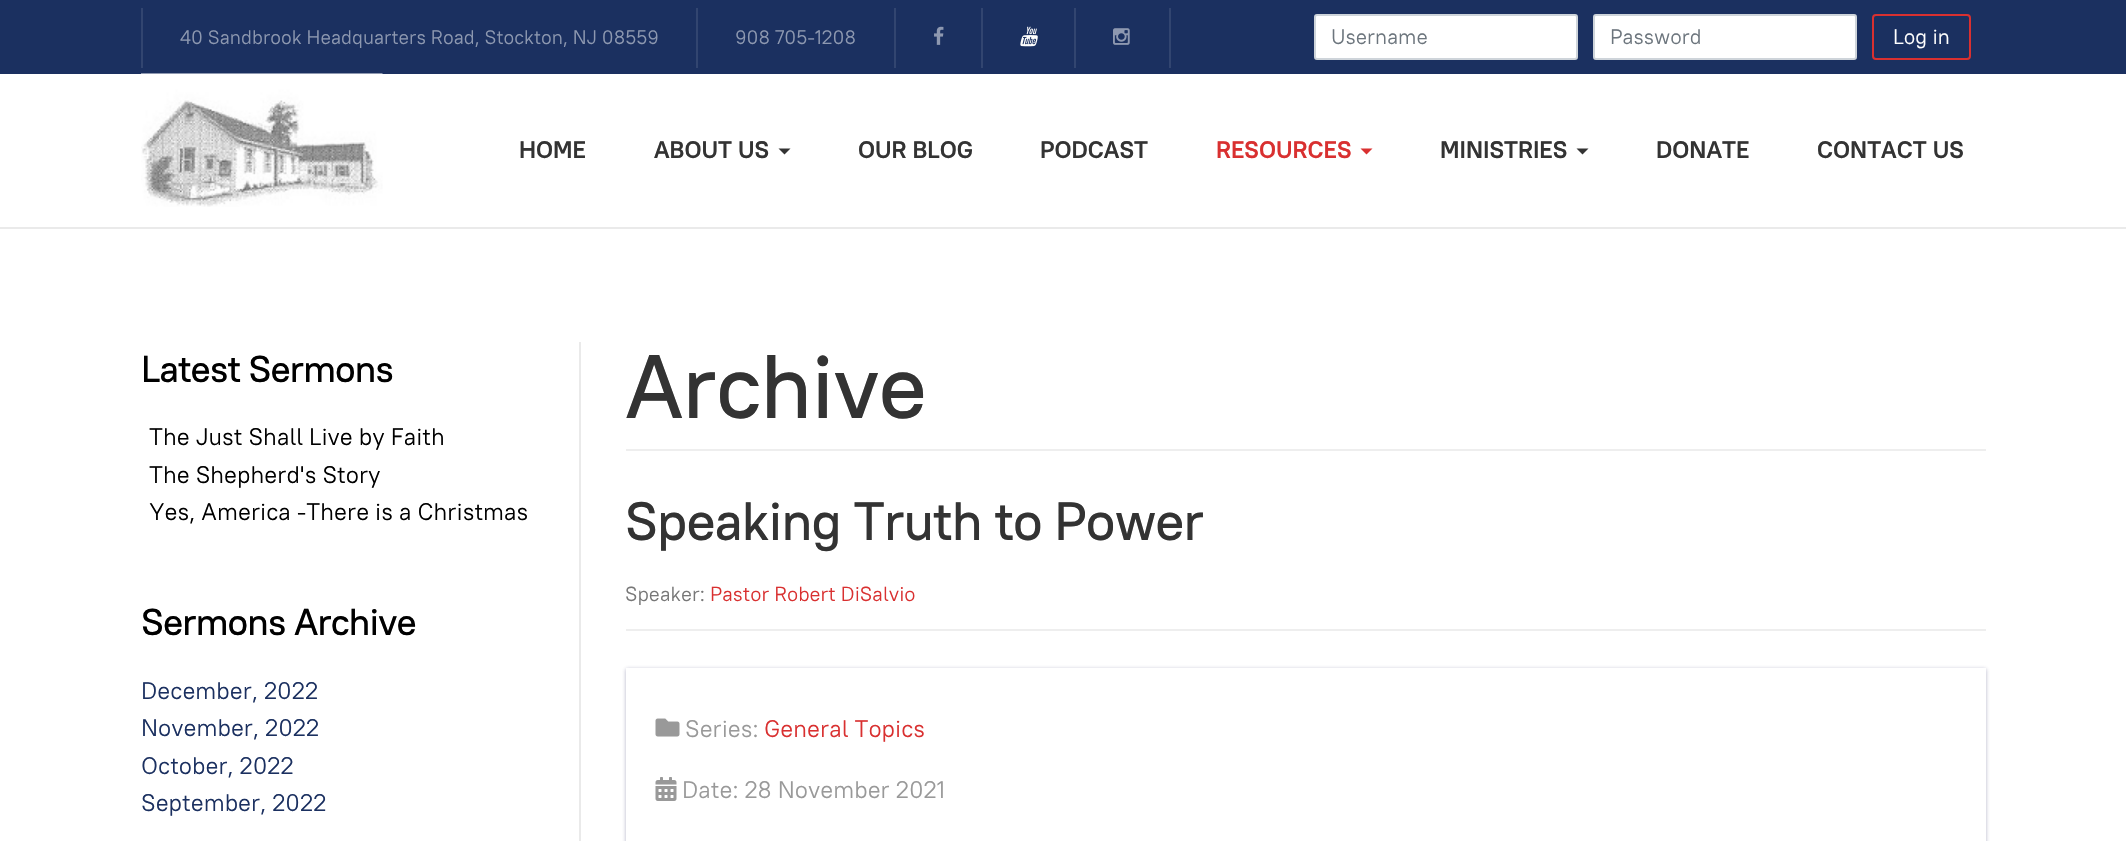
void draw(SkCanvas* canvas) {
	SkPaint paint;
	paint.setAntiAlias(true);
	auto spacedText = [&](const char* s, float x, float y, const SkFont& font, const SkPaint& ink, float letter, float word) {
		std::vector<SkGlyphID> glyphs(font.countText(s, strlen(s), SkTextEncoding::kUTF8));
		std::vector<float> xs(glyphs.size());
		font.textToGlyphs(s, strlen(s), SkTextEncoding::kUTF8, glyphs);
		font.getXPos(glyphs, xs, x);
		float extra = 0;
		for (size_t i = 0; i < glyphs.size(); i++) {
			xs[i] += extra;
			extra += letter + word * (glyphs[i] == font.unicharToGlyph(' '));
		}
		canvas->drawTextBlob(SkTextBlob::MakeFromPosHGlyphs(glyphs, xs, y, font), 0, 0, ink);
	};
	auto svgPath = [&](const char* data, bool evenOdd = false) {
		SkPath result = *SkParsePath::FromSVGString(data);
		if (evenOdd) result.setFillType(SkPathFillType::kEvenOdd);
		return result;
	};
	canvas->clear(0xffffffff);
	paint.setColor(0xff1b3060);
	canvas->drawRect(SkRect::MakeXYWH(0, 0, 2126, 74), paint);
	paint.setColor(0xff324570);
	canvas->drawRect(SkRect::MakeXYWH(141, 8, 2, 60), paint);
	canvas->drawRect(SkRect::MakeXYWH(696, 8, 2, 60), paint);
	SkFont f1(fontMgr->matchFamilyStyle("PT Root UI", SkFontStyle::Normal()), 19.5);
	f1.setSubpixel(true);
	paint.setColor(0xff8d98b0);
	canvas->drawString("40 Sandbrook Headquarters Road, Stockton, NJ 08559", 180, 44, f1, paint);
	paint.setColor(0xff324570);
	canvas->drawRect(SkRect::MakeXYWH(894, 8, 2, 60), paint);
	paint.setColor(0xff8d98b0);
	canvas->drawString("908 705-1208", 735, 44, f1, paint);
	paint.setColor(0xff324570);
	canvas->drawRect(SkRect::MakeXYWH(981, 8, 2, 60), paint);
	canvas->drawImageRect(SkImages::DeferredFromEncodedData(SkData::MakeFromFileName("img1.png")), SkRect::MakeXYWH(934, 26, 10, 19), SkSamplingOptions());
	canvas->drawRect(SkRect::MakeXYWH(1074, 8, 2, 60), paint);
	canvas->drawImageRect(SkImages::DeferredFromEncodedData(SkData::MakeFromFileName("img2.png")), SkRect::MakeXYWH(1020, 26, 18, 21), SkSamplingOptions());
	canvas->drawRect(SkRect::MakeXYWH(1169, 8, 2, 60), paint);
	canvas->drawImageRect(SkImages::DeferredFromEncodedData(SkData::MakeFromFileName("img3.png")), SkRect::MakeXYWH(1113, 28, 17, 17), SkSamplingOptions());
	paint.setColor(0xffffffff);
	canvas->drawRect(SkRect::MakeXYWH(1316, 16, 260, 42), paint);
	paint.setStroke(true);
	paint.setStrokeWidth(2);
	paint.setColor(0xffced4da);
	canvas->drawRoundRect(SkRect::MakeXYWH(1315, 15, 262, 44), 2, 2, paint);
	SkFont f2(fontMgr->matchFamilyStyle("PT Root UI", SkFontStyle::Normal()), 21);
	f2.setSubpixel(true);
	paint.setStroke(false);
	paint.setColor(0xff6c757d);
	canvas->drawString("Username", 1331, 44, f2, paint);
	paint.setColor(0xffffffff);
	canvas->drawRect(SkRect::MakeXYWH(1595, 16, 260, 42), paint);
	paint.setStroke(true);
	paint.setColor(0xffced4da);
	canvas->drawRoundRect(SkRect::MakeXYWH(1594, 15, 262, 44), 2, 2, paint);
	paint.setStroke(false);
	paint.setColor(0xff6c757d);
	canvas->drawString("Password", 1610, 44, f2, paint);
	paint.setStroke(true);
	paint.setColor(0xffd93030);
	canvas->drawRoundRect(SkRect::MakeXYWH(1873, 15, 97, 44), 3, 3, paint);
	paint.setStroke(false);
	paint.setColor(0xffffffff);
	canvas->drawString("Log in", 1893, 44, f2, paint);
	paint.setColor(0xffeaeaea);
	canvas->drawRect(SkRect::MakeXYWH(0, 227, 2126, 2), paint);
	canvas->drawImageRect(SkImages::DeferredFromEncodedData(SkData::MakeFromFileName("img4.png")), SkRect::MakeXYWH(141, 73, 242, 134), SkSamplingOptions());
	SkFont f3(fontMgr->matchFamilyStyle("PT Root UI", SkFontStyle::Bold()), 24);
	f3.setSubpixel(true);
	paint.setColor(0xff333333);
	canvas->drawString("HOME", 519, 158, f3, paint);
	canvas->drawString("ABOUT US", 654, 158, f3, paint);
	canvas->drawPath(svgPath("M778.5 148.5H790.5L784.5 154.5Z"), paint);
	canvas->drawString("OUR BLOG", 858, 158, f3, paint);
	canvas->drawString("PODCAST", 1040, 158, f3, paint);
	paint.setColor(0xffd93030);
	canvas->drawString("RESOURCES", 1216, 158, f3, paint);
	canvas->drawPath(svgPath("M1360.5 148.5H1372.5L1366.5 154.5Z"), paint);
	paint.setColor(0xff333333);
	canvas->drawString("MINISTRIES", 1440, 158, f3, paint);
	canvas->drawPath(svgPath("M1576.5 148.5H1588.5L1582.5 154.5Z"), paint);
	canvas->drawString("DONATE", 1656, 158, f3, paint);
	canvas->drawString("CONTACT US", 1817, 158, f3, paint);
	paint.setColor(0xffeaeaea);
	canvas->drawRect(SkRect::MakeXYWH(579, 342, 2, 499), paint);
	SkFont f4(fontMgr->matchFamilyStyle("PT Root UI", SkFontStyle(500, SkFontStyle::kNormal_Width, SkFontStyle::kUpright_Slant)), 37.5);
	f4.setSubpixel(true);
	paint.setColor(0xff000000);
	spacedText("Latest Sermons", 141, 382, f4, paint, -0.9, 0);
	SkFont f5(fontMgr->matchFamilyStyle("PT Root UI", SkFontStyle::Normal()), 24);
	f5.setSubpixel(true);
	canvas->drawString("The Just Shall Live by Faith", 149, 445, f5, paint);
	canvas->drawString("The Shepherd's Story", 149, 483, f5, paint);
	canvas->drawString("Yes, America -There is a Christmas", 149, 520, f5, paint);
	spacedText("Sermons Archive", 141, 635, f4, paint, -0.9, 0);
	paint.setColor(0xff1b3060);
	canvas->drawString("December, 2022", 141, 699, f5, paint);
	canvas->drawString("November, 2022", 141, 736, f5, paint);
	canvas->drawString("October, 2022", 141, 774, f5, paint);
	canvas->drawString("September, 2022", 141, 811, f5, paint);
	paint.setColor(0xffeeeeee);
	canvas->drawRect(SkRect::MakeXYWH(626, 449, 1360, 2), paint);
	SkFont f6(fontMgr->matchFamilyStyle("PT Root UI", SkFontStyle(500, SkFontStyle::kNormal_Width, SkFontStyle::kUpright_Slant)), 90);
	f6.setSubpixel(true);
	paint.setColor(0xff333333);
	spacedText("Archive", 625, 418, f6, paint, -0.9, 0);
	paint.setColor(0xffeeeeee);
	canvas->drawRect(SkRect::MakeXYWH(626, 629, 1360, 2), paint);
	SkFont f7(fontMgr->matchFamilyStyle("PT Root UI", SkFontStyle(500, SkFontStyle::kNormal_Width, SkFontStyle::kUpright_Slant)), 54);
	f7.setSubpixel(true);
	paint.setColor(0xff333333);
	spacedText("Speaking Truth to Power", 625, 540, f7, paint, -0.9, 0);
	SkFont f8(fontMgr->matchFamilyStyle("PT Root UI", SkFontStyle::Normal()), 20.4);
	f8.setSubpixel(true);
	paint.setColor(0xff777777);
	canvas->drawString("Speaker:", 625, 601, f8, paint);
	paint.setColor(0xffd93030);
	canvas->drawString("Pastor Robert DiSalvio", 710, 601, f8, paint);
	canvas->save();
	canvas->clipPath(svgPath("M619 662H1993V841H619ZM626 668H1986V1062H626Z", true), true);
	paint.setColor(0x4f0e0a4e);
	paint.setMaskFilter(SkMaskFilter::MakeBlur(kNormal_SkBlurStyle, 2));
	canvas->drawRect(SkRect::MakeXYWH(626, 669, 1360, 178), paint);
	paint.setMaskFilter(nullptr);
	canvas->restore();
	canvas->drawImageRect(SkImages::DeferredFromEncodedData(SkData::MakeFromFileName("img5.png")), SkRect::MakeXYWH(655, 718, 25, 19), SkSamplingOptions());
	paint.setColor(0xff999999);
	canvas->drawString("Series:", 685, 737, f5, paint);
	paint.setColor(0xffd93030);
	canvas->drawString("General Topics", 764, 737, f5, paint);
	canvas->drawImageRect(SkImages::DeferredFromEncodedData(SkData::MakeFromFileName("img6.png")), SkRect::MakeXYWH(655, 777, 22, 24), SkSamplingOptions());
	paint.setColor(0xff999999);
	canvas->drawString("Date: 28 November 2021", 682, 798, f5, paint);
}
